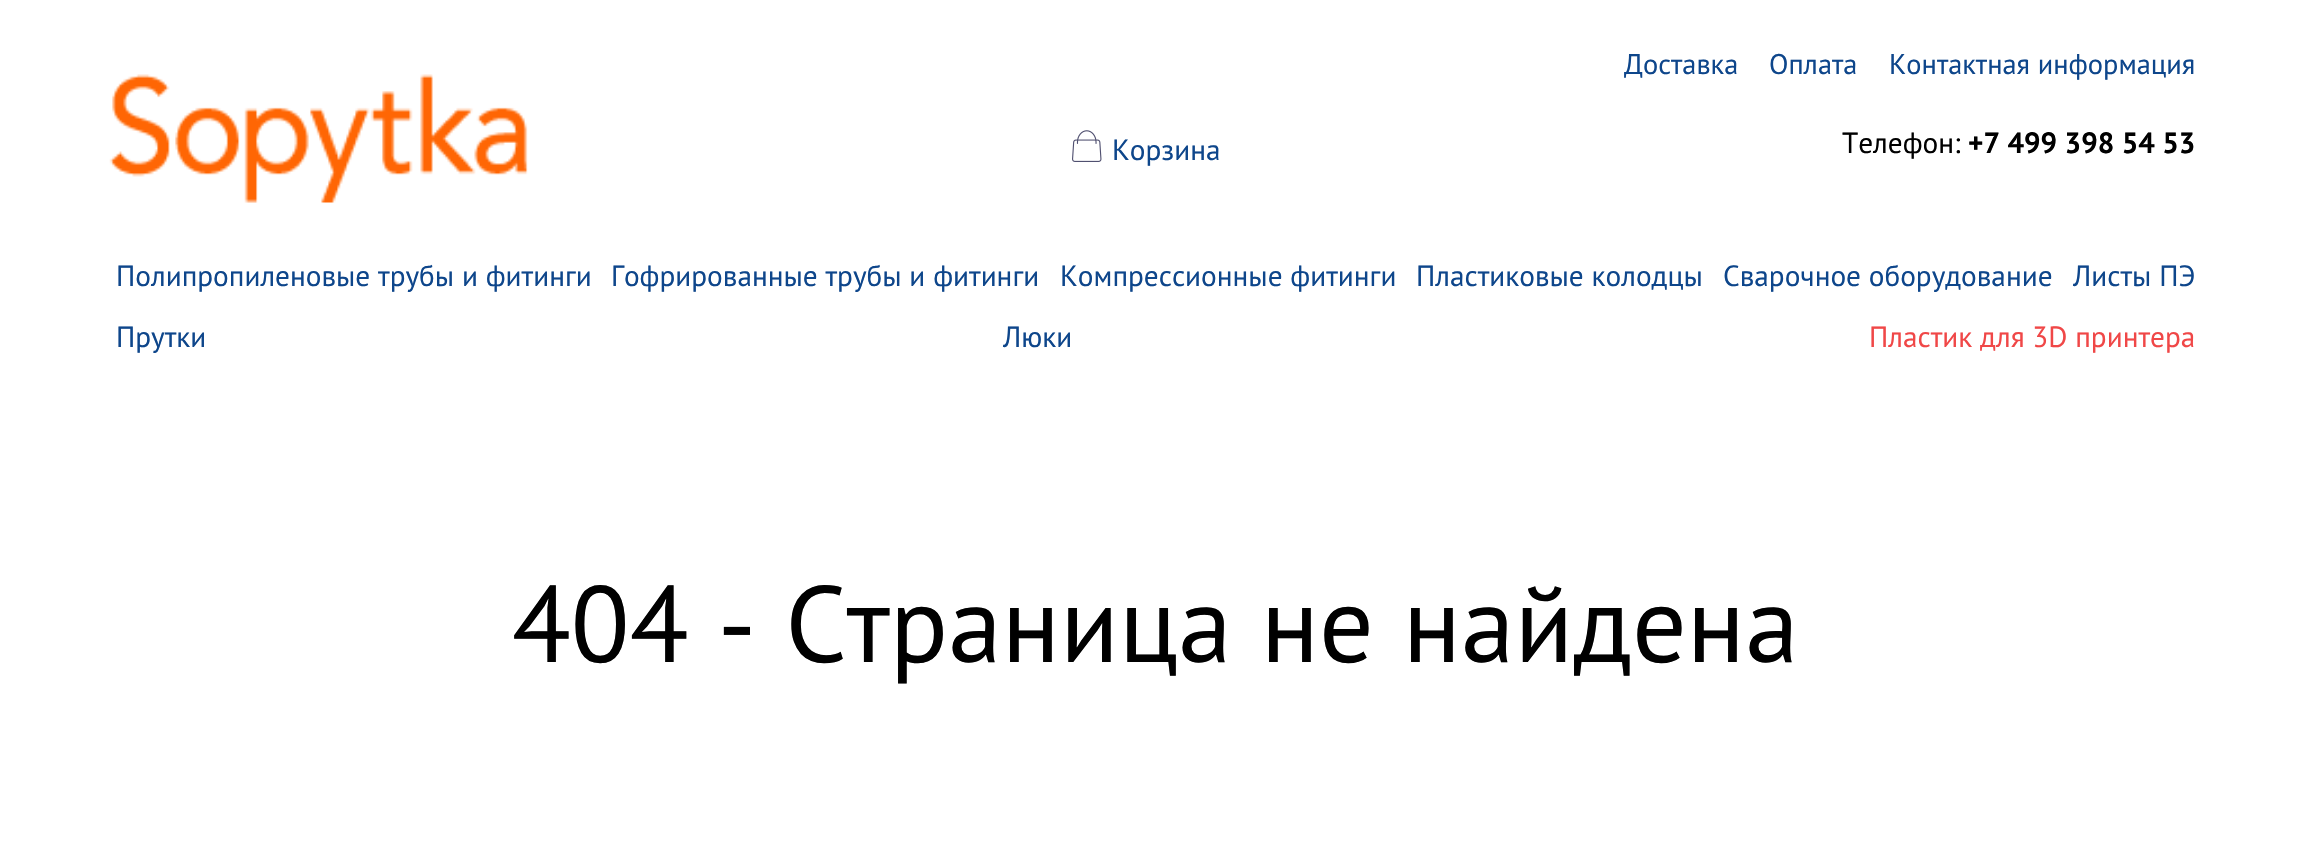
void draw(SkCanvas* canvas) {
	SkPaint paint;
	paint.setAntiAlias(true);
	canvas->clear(0xffffffff);
	SkFont f1(fontMgr->matchFamilyStyle("PT Sans", SkFontStyle::Normal()), 28.4);
	f1.setSubpixel(true);
	paint.setColor(0xff0e468b);
	canvas->drawString("Доставка", 1624, 74, f1, paint);
	canvas->drawString("Оплата", 1769, 74, f1, paint);
	canvas->drawString("Контактная информация", 1889, 74, f1, paint);
	canvas->drawImageRect(SkImages::DeferredFromEncodedData(SkData::MakeFromFileName("img1.png")), SkRect::MakeXYWH(109, 74, 419, 129), SkSamplingOptions());
	canvas->drawImageRect(SkImages::DeferredFromEncodedData(SkData::MakeFromFileName("img2.png")), SkRect::MakeXYWH(1072, 130, 30, 32), SkSamplingOptions());
	SkFont f2(fontMgr->matchFamilyStyle("PT Sans", SkFontStyle::Normal()), 29.25);
	f2.setSubpixel(true);
	canvas->drawString("Корзина", 1112, 160, f2, paint);
	paint.setColor(0xff000000);
	canvas->drawString("Телефон:", 1842, 153, f2, paint);
	SkFont f3(fontMgr->matchFamilyStyle("PT Sans", SkFontStyle::Bold()), 29.25);
	f3.setSubpixel(true);
	canvas->drawString("+7 499 398 54 53", 1968, 153, f3, paint);
	paint.setColor(0xff0e468b);
	canvas->drawString("Полипропиленовые трубы и фитинги", 116, 286, f2, paint);
	canvas->drawString("Гофрированные трубы и фитинги", 611, 286, f2, paint);
	canvas->drawString("Компрессионные фитинги", 1060, 286, f2, paint);
	canvas->drawString("Пластиковые колодцы", 1416, 286, f2, paint);
	canvas->drawString("Сварочное оборудование", 1723, 286, f2, paint);
	canvas->drawString("Листы ПЭ", 2073, 286, f2, paint);
	canvas->drawString("Прутки", 116, 347, f2, paint);
	canvas->drawString("Люки", 1003, 347, f2, paint);
	paint.setColor(0xfff04747);
	canvas->drawString("Пластик для 3D принтера", 1869, 347, f2, paint);
	SkFont f4(fontMgr->matchFamilyStyle("PT Sans", SkFontStyle::Normal()), 108);
	f4.setSubpixel(true);
	paint.setColor(0xff000000);
	canvas->drawString("404 - Страница не найдена", 512, 662, f4, paint);
}
